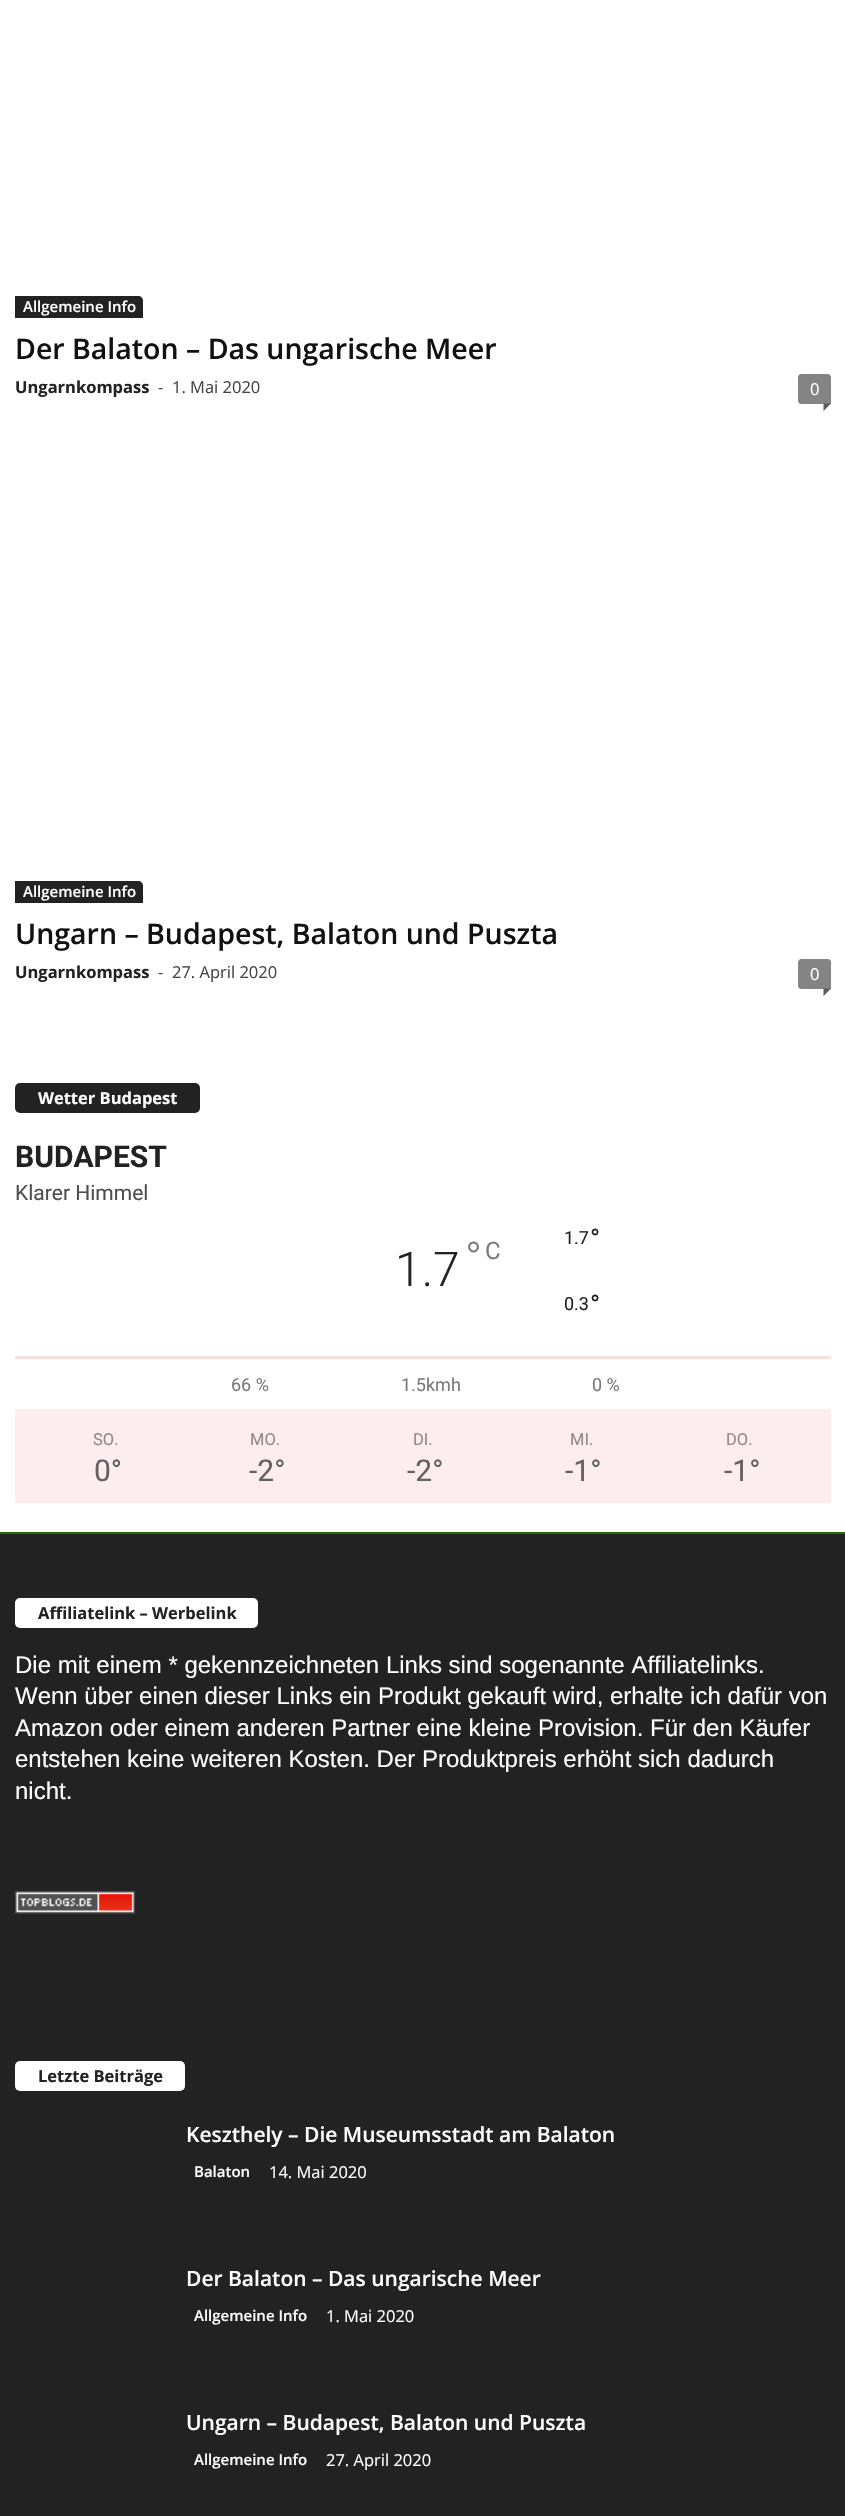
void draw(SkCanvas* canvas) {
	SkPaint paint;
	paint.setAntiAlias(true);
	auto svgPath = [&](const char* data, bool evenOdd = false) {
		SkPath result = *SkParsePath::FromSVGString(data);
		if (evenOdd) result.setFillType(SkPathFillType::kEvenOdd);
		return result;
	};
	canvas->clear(0xffffffff);
	paint.setColor(0xff2a6900);
	canvas->drawRect(SkRect::MakeXYWH(0, 1532, 845, 2), paint);
	paint.setColor(0xff222222);
	canvas->drawPath(svgPath("M15 296H138C141 296 143 298 143 301V318H15Z"), paint);
	SkFont f1(fontMgr->matchFamilyStyle("Open Sans", SkFontStyle(600, SkFontStyle::kNormal_Width, SkFontStyle::kUpright_Slant)), 15);
	f1.setSubpixel(true);
	paint.setColor(0xffffffff);
	canvas->drawString("Allgemeine Info", 23, 312, f1, paint);
	SkFont f2(fontMgr->matchFamilyStyle("Open Sans", SkFontStyle(600, SkFontStyle::kNormal_Width, SkFontStyle::kUpright_Slant)), 28.5);
	f2.setSubpixel(true);
	paint.setColor(0xff111111);
	canvas->drawString("Der Balaton – Das ungarische Meer", 15, 359, f2, paint);
	SkFont f3(fontMgr->matchFamilyStyle("Open Sans", SkFontStyle::Bold()), 16.5);
	f3.setSubpixel(true);
	paint.setColor(0xff222222);
	canvas->drawString("Ungarnkompass", 15, 393, f3, paint);
	SkFont f4(fontMgr->matchFamilyStyle("Open Sans", SkFontStyle::Normal()), 16.5);
	f4.setSubpixel(true);
	paint.setColor(0xff444444);
	canvas->drawString("-", 158, 393, f4, paint);
	canvas->drawString("1. Mai 2020", 172, 393, f4, paint);
	paint.setColor(0xff848484);
	canvas->drawPath(svgPath("M801 374H828C829.5 374 831 375.5 831 377V404H801C799.5 404 798 402.5 798 401V377C798 375.5 799.5 374 801 374Z"), paint);
	paint.setColor(0xffffffff);
	canvas->drawString("0", 810, 395, f4, paint);
	paint.setColor(0xff5b5b5b);
	canvas->drawPath(svgPath("M823.5 403.5H831L823.5 411Z"), paint);
	paint.setColor(0xff222222);
	canvas->drawPath(svgPath("M15 881H138C141 881 143 883 143 886V903H15Z"), paint);
	paint.setColor(0xffffffff);
	canvas->drawString("Allgemeine Info", 23, 897, f1, paint);
	paint.setColor(0xff111111);
	canvas->drawString("Ungarn – Budapest, Balaton und Puszta", 15, 944, f2, paint);
	paint.setColor(0xff222222);
	canvas->drawString("Ungarnkompass", 15, 978, f3, paint);
	paint.setColor(0xff444444);
	canvas->drawString("-", 158, 978, f4, paint);
	canvas->drawString("27. April 2020", 172, 978, f4, paint);
	paint.setColor(0xff848484);
	canvas->drawPath(svgPath("M801 959H828C829.5 959 831 960.5 831 962V989H801C799.5 989 798 987.5 798 986V962C798 960.5 799.5 959 801 959Z"), paint);
	paint.setColor(0xffffffff);
	canvas->drawString("0", 810, 980, f4, paint);
	paint.setColor(0xff5b5b5b);
	canvas->drawPath(svgPath("M823.5 988.5H831L823.5 996Z"), paint);
	paint.setColor(0xff222222);
	canvas->drawRoundRect(SkRect::MakeXYWH(15, 1083, 185, 30), 5, 5, paint);
	paint.setColor(0xffffffff);
	canvas->drawString("Wetter Budapest", 38, 1104, f3, paint);
	SkFont f5(fontMgr->matchFamilyStyle("Roboto", SkFontStyle::Bold()), 30);
	f5.setSubpixel(true);
	paint.setColor(0xff222222);
	canvas->drawString("BUDAPEST", 15, 1167, f5, paint);
	SkFont f6(fontMgr->matchFamilyStyle("Roboto", SkFontStyle::Normal()), 21);
	f6.setSubpixel(true);
	paint.setColor(0xff4e4e4e);
	canvas->drawString("Klarer Himmel", 15, 1200, f6, paint);
	SkFont f7(fontMgr->matchFamilyStyle("Roboto", SkFontStyle(300, SkFontStyle::kNormal_Width, SkFontStyle::kUpright_Slant)), 48);
	f7.setSubpixel(true);
	paint.setColor(0xff222222);
	canvas->drawString("1.7", 395, 1286, f7, paint);
	SkFont f8(fontMgr->matchFamilyStyle("Roboto", SkFontStyle(300, SkFontStyle::kNormal_Width, SkFontStyle::kUpright_Slant)), 45);
	f8.setSubpixel(true);
	paint.setColor(0xff7a7a7a);
	canvas->drawString("°", 465, 1274, f8, paint);
	SkFont f9(fontMgr->matchFamilyStyle("Roboto", SkFontStyle::Normal()), 24);
	f9.setSubpixel(true);
	canvas->drawString("C", 485, 1259, f9, paint);
	SkFont f10(fontMgr->matchFamilyStyle("Roboto", SkFontStyle::Normal()), 18);
	f10.setSubpixel(true);
	paint.setColor(0xff222222);
	canvas->drawString("1.7", 564, 1244, f10, paint);
	SkFont f11(fontMgr->matchFamilyStyle("Roboto", SkFontStyle::Normal()), 27);
	f11.setSubpixel(true);
	canvas->drawString("°", 590, 1248, f11, paint);
	canvas->drawString("0.3", 564, 1310, f10, paint);
	canvas->drawString("°", 590, 1314, f11, paint);
	paint.setColor(0xfffbe0e3);
	canvas->drawRect(SkRect::MakeXYWH(15, 1356, 816, 3), paint);
	paint.setColor(0xff7a7a7a);
	canvas->drawString("66 %", 231, 1391, f10, paint);
	canvas->drawString("1.5kmh", 401, 1391, f10, paint);
	canvas->drawString("0 %", 592, 1391, f10, paint);
	paint.setColor(0xfffdedef);
	canvas->drawRect(SkRect::MakeXYWH(15, 1409, 816, 94), paint);
	SkFont f12(fontMgr->matchFamilyStyle("Roboto", SkFontStyle::Normal()), 16.5);
	f12.setSubpixel(true);
	paint.setColor(0xff908889);
	canvas->drawString("SO.", 93, 1445, f12, paint);
	SkFont f13(fontMgr->matchFamilyStyle("Roboto", SkFontStyle::Normal()), 30);
	f13.setSubpixel(true);
	paint.setColor(0xff645f60);
	canvas->drawString("0°", 94, 1481, f13, paint);
	paint.setColor(0xff908889);
	canvas->drawString("MO.", 250, 1445, f12, paint);
	paint.setColor(0xff645f60);
	canvas->drawString("-2°", 249, 1481, f13, paint);
	paint.setColor(0xff908889);
	canvas->drawString("DI.", 413, 1445, f12, paint);
	paint.setColor(0xff645f60);
	canvas->drawString("-2°", 407, 1481, f13, paint);
	paint.setColor(0xff908889);
	canvas->drawString("MI.", 570, 1445, f12, paint);
	paint.setColor(0xff645f60);
	canvas->drawString("-1°", 565, 1481, f13, paint);
	paint.setColor(0xff908889);
	canvas->drawString("DO.", 726, 1445, f12, paint);
	paint.setColor(0xff645f60);
	canvas->drawString("-1°", 724, 1481, f13, paint);
	paint.setColor(0xff222222);
	canvas->drawRect(SkRect::MakeXYWH(0, 1534, 845, 982), paint);
	paint.setColor(0xffffffff);
	canvas->drawRoundRect(SkRect::MakeXYWH(15, 1598, 243, 30), 5, 5, paint);
	paint.setColor(0xff222222);
	canvas->drawString("Affiliatelink – Werbelink", 38, 1619, f3, paint);
	SkFont f14(fontMgr->matchFamilyStyle("Liberation Sans", SkFontStyle::Normal()), 24);
	f14.setSubpixel(true);
	paint.setColor(0xffffffff);
	canvas->drawString("Die mit einem * gekennzeichneten Links sind sogenannte Affiliatelinks.", 15, 1673, f14, paint);
	canvas->drawString("Wenn über einen dieser Links ein Produkt gekauft wird, erhalte ich dafür von", 15, 1704, f14, paint);
	canvas->drawString("Amazon oder einem anderen Partner eine kleine Provision. Für den Käufer", 15, 1736, f14, paint);
	canvas->drawString("entstehen keine weiteren Kosten. Der Produktpreis erhöht sich dadurch", 15, 1767, f14, paint);
	canvas->drawString("nicht.", 15, 1799, f14, paint);
	canvas->drawImageRect(SkImages::DeferredFromEncodedData(SkData::MakeFromFileName("img1.png")), SkRect::MakeXYWH(15, 1891, 120, 23), SkSamplingOptions());
	canvas->drawRoundRect(SkRect::MakeXYWH(15, 2061, 170, 30), 5, 5, paint);
	paint.setColor(0xff222222);
	canvas->drawString("Letzte Beiträge", 38, 2082, f3, paint);
	SkFont f15(fontMgr->matchFamilyStyle("Open Sans", SkFontStyle(600, SkFontStyle::kNormal_Width, SkFontStyle::kUpright_Slant)), 21);
	f15.setSubpixel(true);
	paint.setColor(0xffffffff);
	canvas->drawString("Keszthely – Die Museumsstadt am Balaton", 186, 2142, f15, paint);
	canvas->drawString("Balaton", 194, 2177, f1, paint);
	canvas->drawString("14. Mai 2020", 269, 2178, f4, paint);
	canvas->drawString("Der Balaton – Das ungarische Meer", 186, 2286, f15, paint);
	canvas->drawString("Allgemeine Info", 194, 2321, f1, paint);
	canvas->drawString("1. Mai 2020", 326, 2322, f4, paint);
	canvas->drawString("Ungarn – Budapest, Balaton und Puszta", 186, 2430, f15, paint);
	canvas->drawString("Allgemeine Info", 194, 2465, f1, paint);
	canvas->drawString("27. April 2020", 326, 2466, f4, paint);
}
